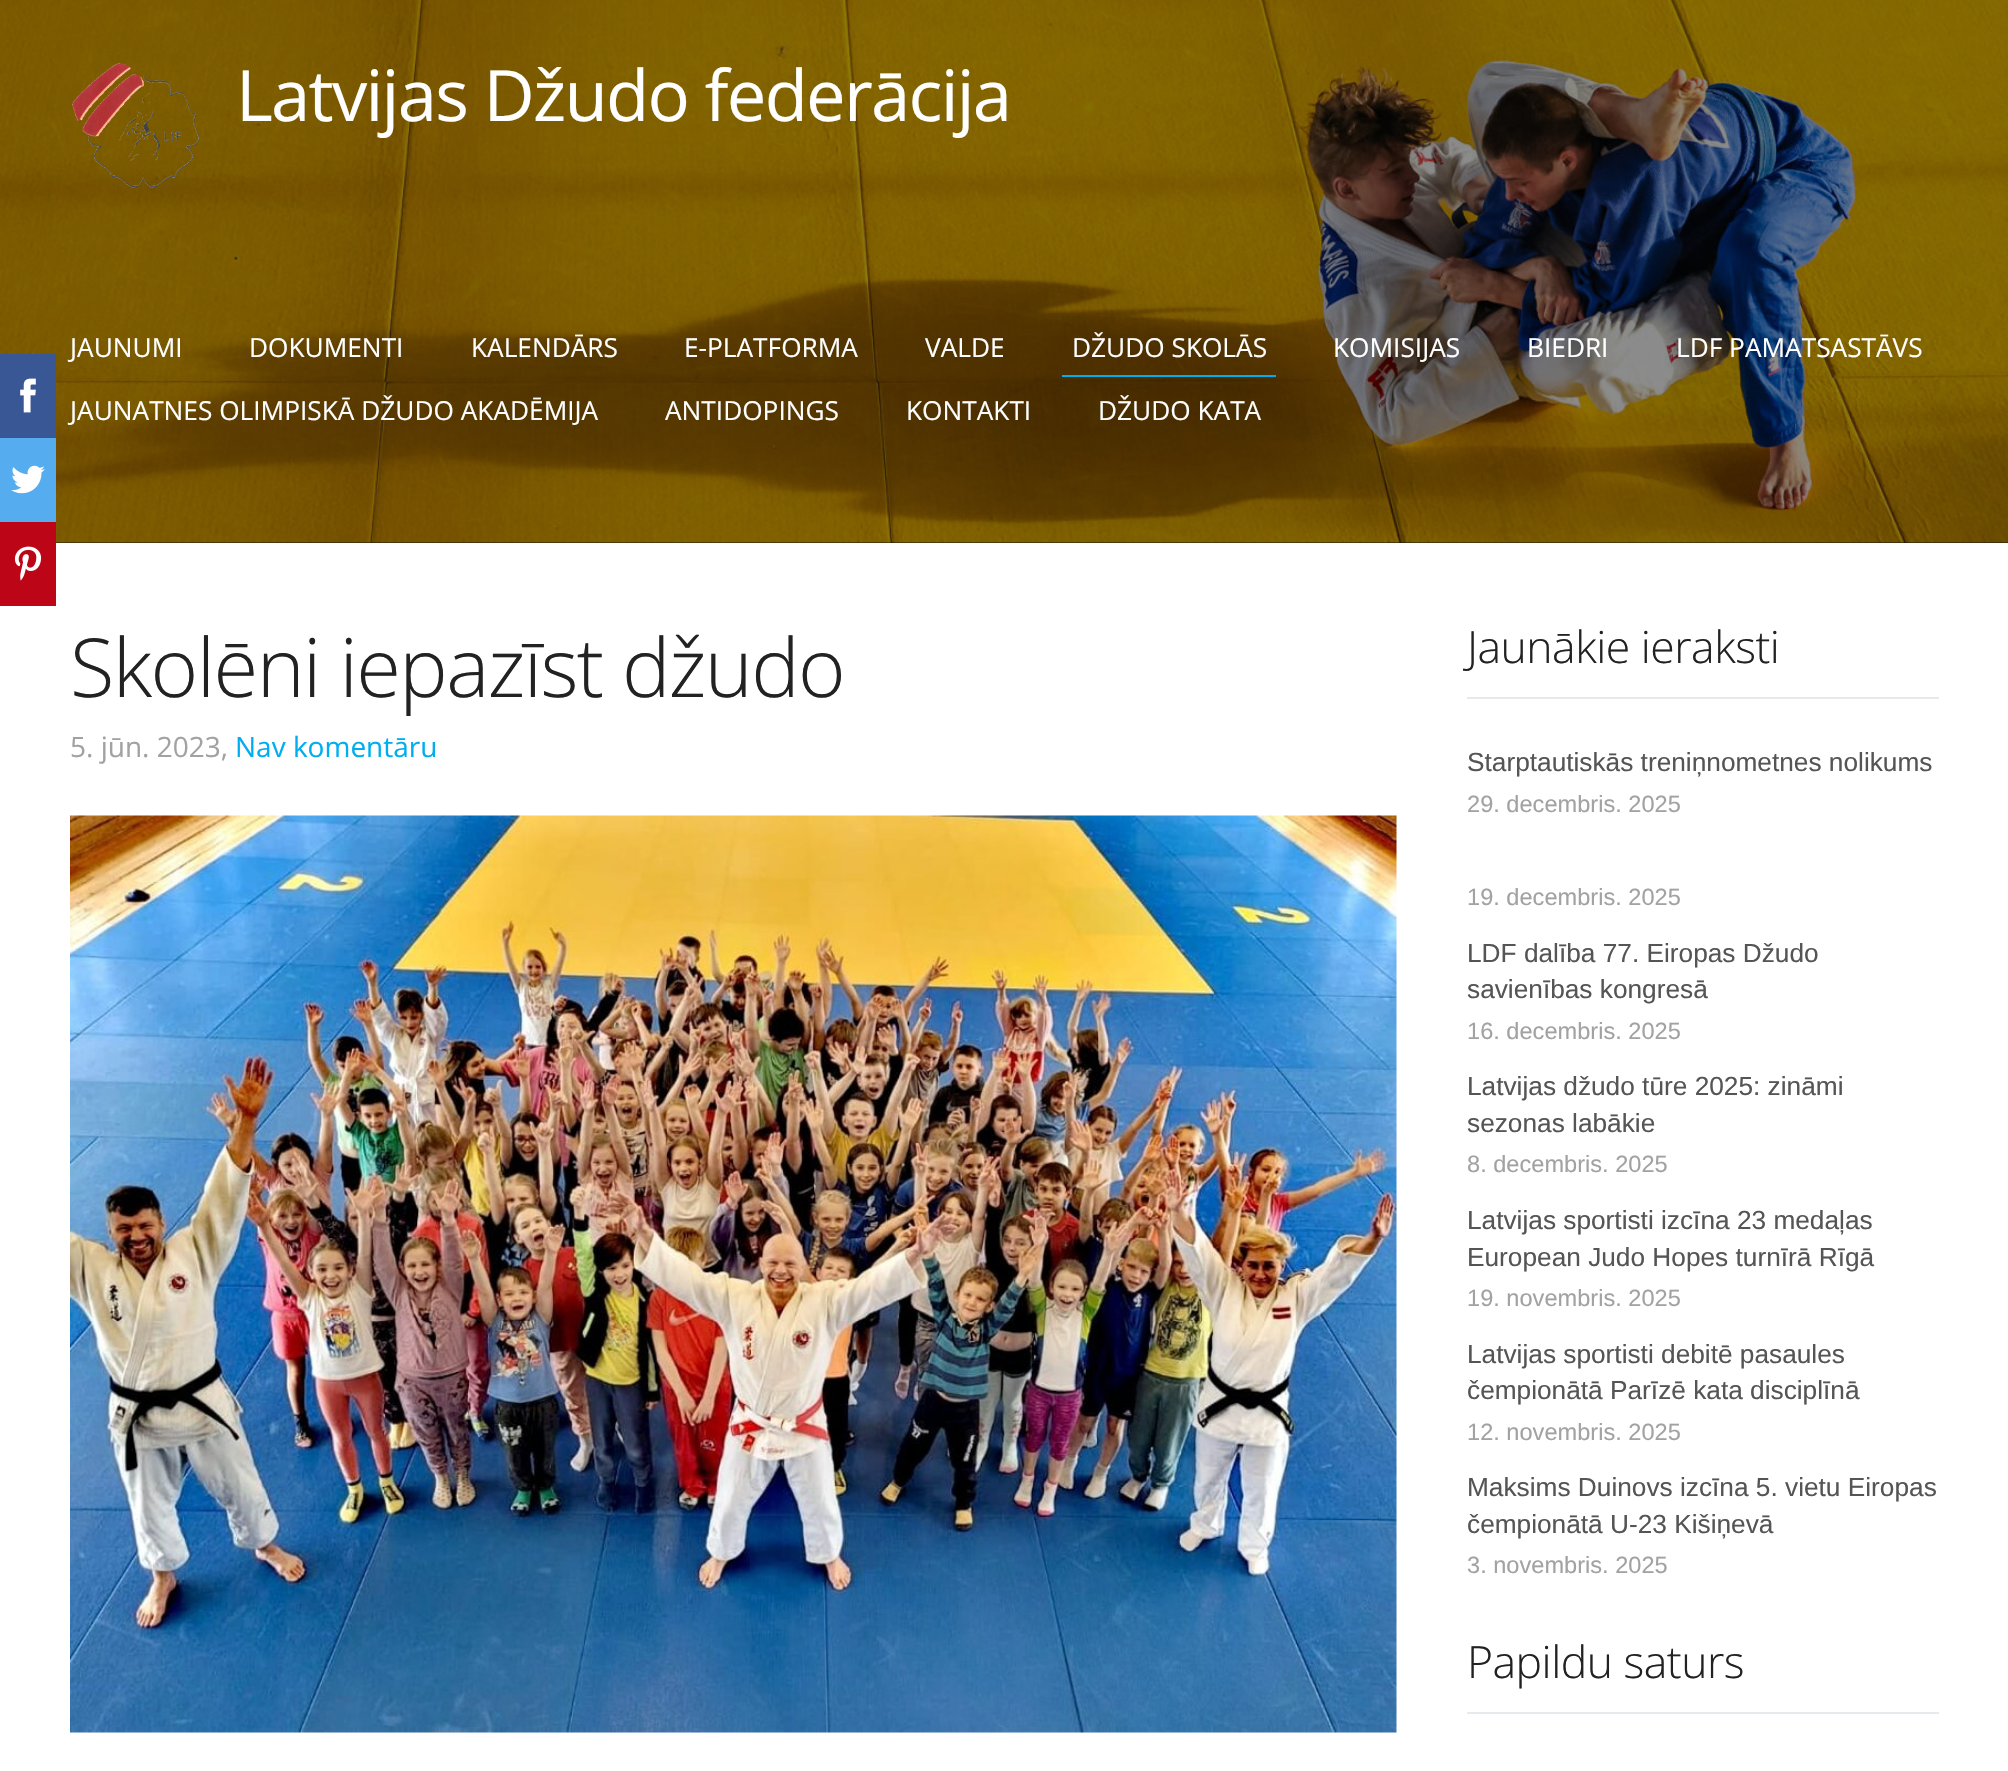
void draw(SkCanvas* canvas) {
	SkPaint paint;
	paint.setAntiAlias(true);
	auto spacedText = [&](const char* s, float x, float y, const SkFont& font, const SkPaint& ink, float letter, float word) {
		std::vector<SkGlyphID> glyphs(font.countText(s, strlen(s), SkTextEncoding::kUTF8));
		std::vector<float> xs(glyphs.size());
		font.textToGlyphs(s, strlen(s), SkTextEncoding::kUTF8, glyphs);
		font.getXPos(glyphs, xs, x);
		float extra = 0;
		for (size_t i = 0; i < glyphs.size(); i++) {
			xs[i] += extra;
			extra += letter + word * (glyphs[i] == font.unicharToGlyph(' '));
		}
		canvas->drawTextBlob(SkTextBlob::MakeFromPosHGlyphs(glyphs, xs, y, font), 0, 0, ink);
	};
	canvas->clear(0xff151515);
	canvas->drawImageRect(SkImages::DeferredFromEncodedData(SkData::MakeFromFileName("img1.png")), SkRect::MakeXYWH(0, 0, 2008, 543), SkSamplingOptions());
	canvas->drawImageRect(SkImages::DeferredFromEncodedData(SkData::MakeFromFileName("img2.png")), SkRect::MakeXYWH(72, 62, 128, 126), SkSamplingOptions());
	SkFont f1(fontMgr->matchFamilyStyle("Open Sans", SkFontStyle::Normal()), 70.6);
	f1.setSubpixel(true);
	paint.setColor(0xffffffff);
	spacedText("Latvijas Džudo federācija", 236, 121, f1, paint, -1.75, 0);
	SkFont f2(fontMgr->matchFamilyStyle("Open Sans", SkFontStyle::Normal()), 26.25);
	f2.setSubpixel(true);
	canvas->drawString("JAUNUMI", 70, 357, f2, paint);
	canvas->drawString("DOKUMENTI", 249, 357, f2, paint);
	canvas->drawString("KALENDĀRS", 471, 357, f2, paint);
	canvas->drawString("E-PLATFORMA", 684, 357, f2, paint);
	canvas->drawString("VALDE", 925, 357, f2, paint);
	paint.setColor(0xff00aeef);
	canvas->drawRect(SkRect::MakeXYWH(1062, 375, 214, 2), paint);
	paint.setColor(0xffffffff);
	canvas->drawString("DŽUDO SKOLĀS", 1072, 357, f2, paint);
	canvas->drawString("KOMISIJAS", 1333, 357, f2, paint);
	canvas->drawString("BIEDRI", 1527, 357, f2, paint);
	canvas->drawString("LDF PAMATSASTĀVS", 1676, 357, f2, paint);
	canvas->drawString("JAUNATNES OLIMPISKĀ DŽUDO AKADĒMIJA", 70, 420, f2, paint);
	canvas->drawString("ANTIDOPINGS", 665, 420, f2, paint);
	canvas->drawString("KONTAKTI", 906, 420, f2, paint);
	canvas->drawString("DŽUDO KATA", 1098, 420, f2, paint);
	paint.setColor(0xff3a5795);
	canvas->drawRect(SkRect::MakeXYWH(0, 354, 56, 84), paint);
	canvas->drawImageRect(SkImages::DeferredFromEncodedData(SkData::MakeFromFileName("img3.png")), SkRect::MakeXYWH(20, 378, 16, 35), SkSamplingOptions());
	paint.setColor(0xff55acee);
	canvas->drawRect(SkRect::MakeXYWH(0, 438, 56, 84), paint);
	canvas->drawImageRect(SkImages::DeferredFromEncodedData(SkData::MakeFromFileName("img4.png")), SkRect::MakeXYWH(11, 465, 34, 29), SkSamplingOptions());
	paint.setColor(0xffffffff);
	canvas->drawRect(SkRect::MakeXYWH(0, 543, 2008, 1228), paint);
	paint.setColor(0xffbc0618);
	canvas->drawRect(SkRect::MakeXYWH(0, 522, 56, 84), paint);
	canvas->drawImageRect(SkImages::DeferredFromEncodedData(SkData::MakeFromFileName("img5.png")), SkRect::MakeXYWH(14, 546, 28, 35), SkSamplingOptions());
	SkFont f3(fontMgr->matchFamilyStyle("Open Sans", SkFontStyle(300, SkFontStyle::kNormal_Width, SkFontStyle::kUpright_Slant)), 81.4);
	f3.setSubpixel(true);
	paint.setColor(0xff222222);
	spacedText("Skolēni iepazīst džudo", 70, 697, f3, paint, -1.6, 0);
	SkFont f4(fontMgr->matchFamilyStyle("Open Sans", SkFontStyle::Normal()), 28);
	f4.setSubpixel(true);
	paint.setColor(0xffa2a2a2);
	canvas->drawString("5. jūn. 2023,", 70, 757, f4, paint);
	paint.setColor(0xff00aeef);
	canvas->drawString("Nav komentāru", 235, 757, f4, paint);
	canvas->drawImageRect(SkImages::DeferredFromEncodedData(SkData::MakeFromFileName("img6.png")), SkRect::MakeXYWH(70, 815, 1327, 918), SkSamplingOptions());
	paint.setColor(0xffe7eaec);
	canvas->drawRect(SkRect::MakeXYWH(1467, 697, 472, 2), paint);
	SkFont f5(fontMgr->matchFamilyStyle("Open Sans", SkFontStyle(300, SkFontStyle::kNormal_Width, SkFontStyle::kUpright_Slant)), 44.5);
	f5.setSubpixel(true);
	paint.setColor(0xff222222);
	spacedText("Jaunākie ieraksti", 1467, 663, f5, paint, -0.5, 0);
	SkFont f6(fontMgr->matchFamilyStyle("Liberation Sans", SkFontStyle::Normal()), 26.25);
	f6.setSubpixel(true);
	paint.setColor(0xff555555);
	canvas->drawString("Starptautiskās treniņnometnes nolikums", 1467, 771, f6, paint);
	SkFont f7(fontMgr->matchFamilyStyle("Liberation Sans", SkFontStyle::Normal()), 23.6);
	f7.setSubpixel(true);
	paint.setColor(0xffa2a2a2);
	canvas->drawString("29. decembris. 2025", 1467, 812, f7, paint);
	canvas->drawString("19. decembris. 2025", 1467, 905, f7, paint);
	paint.setColor(0xff555555);
	canvas->drawString("LDF dalība 77. Eiropas Džudo", 1467, 962, f6, paint);
	canvas->drawString("savienības kongresā", 1467, 998, f6, paint);
	paint.setColor(0xffa2a2a2);
	canvas->drawString("16. decembris. 2025", 1467, 1039, f7, paint);
	paint.setColor(0xff555555);
	canvas->drawString("Latvijas džudo tūre 2025: zināmi", 1467, 1095, f6, paint);
	canvas->drawString("sezonas labākie", 1467, 1132, f6, paint);
	paint.setColor(0xffa2a2a2);
	canvas->drawString("8. decembris. 2025", 1467, 1172, f7, paint);
	paint.setColor(0xff555555);
	canvas->drawString("Latvijas sportisti izcīna 23 medaļas", 1467, 1229, f6, paint);
	canvas->drawString("European Judo Hopes turnīrā Rīgā", 1467, 1266, f6, paint);
	paint.setColor(0xffa2a2a2);
	canvas->drawString("19. novembris. 2025", 1467, 1306, f7, paint);
	paint.setColor(0xff555555);
	canvas->drawString("Latvijas sportisti debitē pasaules", 1467, 1363, f6, paint);
	canvas->drawString("čempionātā Parīzē kata disciplīnā", 1467, 1399, f6, paint);
	paint.setColor(0xffa2a2a2);
	canvas->drawString("12. novembris. 2025", 1467, 1440, f7, paint);
	paint.setColor(0xff555555);
	canvas->drawString("Maksims Duinovs izcīna 5. vietu Eiropas", 1467, 1496, f6, paint);
	canvas->drawString("čempionātā U-23 Kišiņevā", 1467, 1533, f6, paint);
	paint.setColor(0xffa2a2a2);
	canvas->drawString("3. novembris. 2025", 1467, 1573, f7, paint);
	paint.setColor(0xffe7eaec);
	canvas->drawRect(SkRect::MakeXYWH(1467, 1712, 472, 2), paint);
	paint.setColor(0xff222222);
	spacedText("Papildu saturs", 1467, 1678, f5, paint, -0.5, 0);
}
